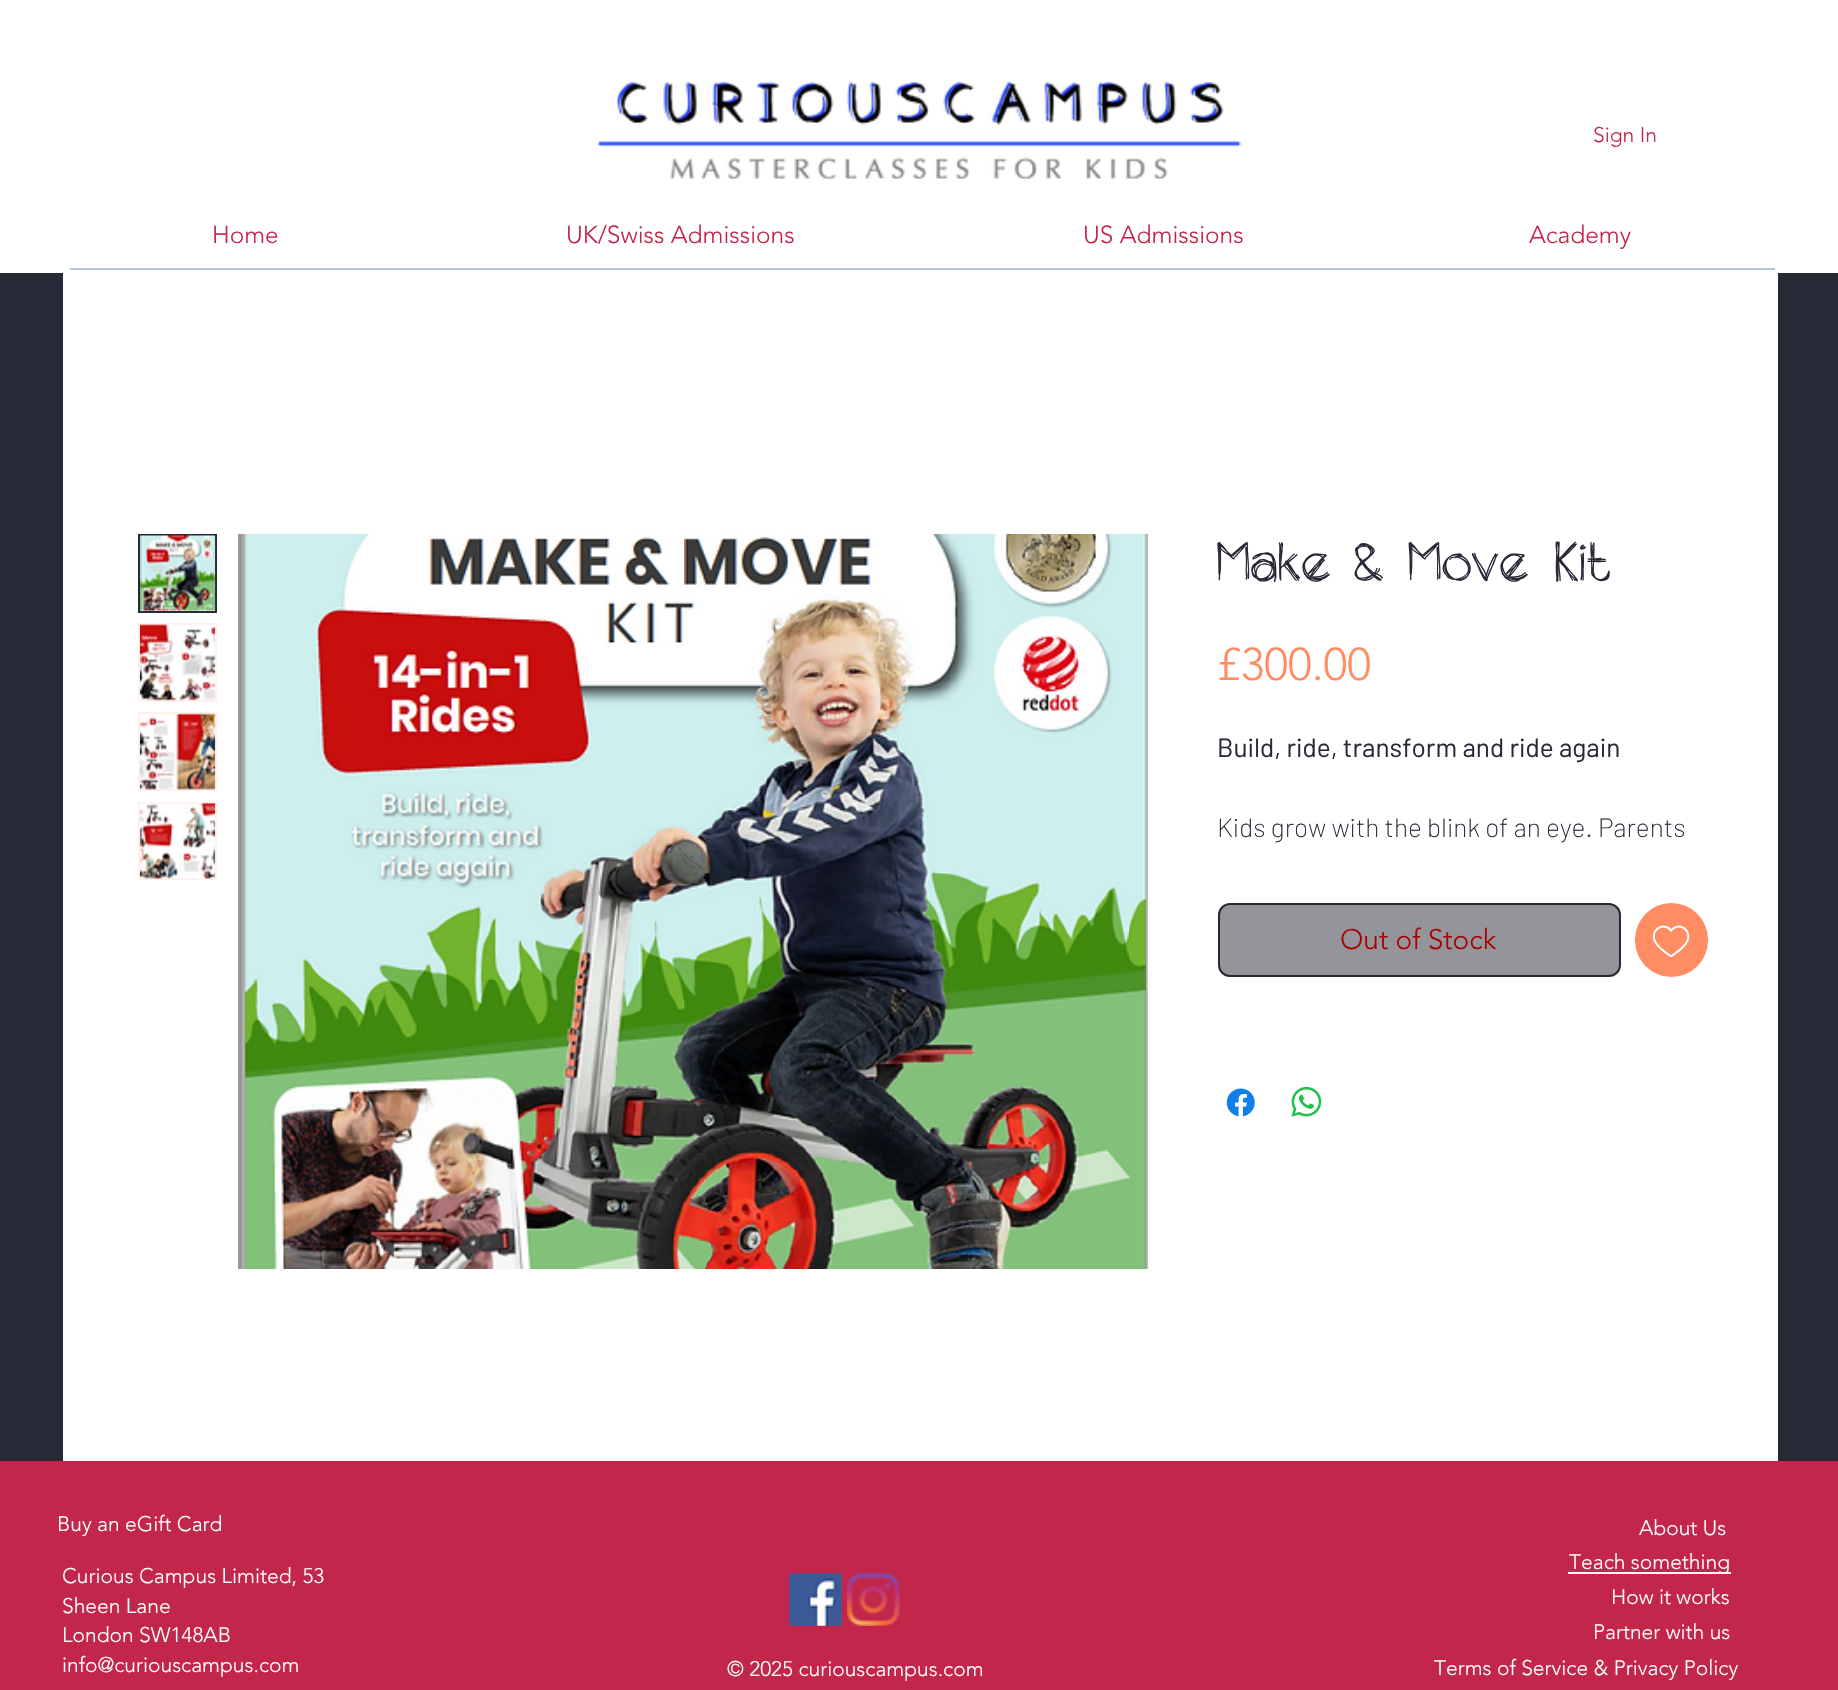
void draw(SkCanvas* canvas) {
	SkPaint paint;
	paint.setAntiAlias(true);
	canvas->clear(0xff282936);
	paint.setColor(0xffffffff);
	canvas->drawRect(SkRect::MakeXYWH(0, 0, 1838, 273), paint);
	canvas->drawImageRect(SkImages::DeferredFromEncodedData(SkData::MakeFromFileName("img1.png")), SkRect::MakeXYWH(598, 81, 644, 100), SkSamplingOptions());
	SkFont f1(fontMgr->matchFamilyStyle("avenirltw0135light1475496", SkFontStyle(300, SkFontStyle::kNormal_Width, SkFontStyle::kUpright_Slant)), 21);
	f1.setSubpixel(true);
	paint.setColor(0xffc2274b);
	canvas->drawString("Sign In", 1593, 142, f1, paint);
	SkFont f2(fontMgr->matchFamilyStyle("avenirltw0135light1475496", SkFontStyle(300, SkFontStyle::kNormal_Width, SkFontStyle::kUpright_Slant)), 24.5);
	f2.setSubpixel(true);
	canvas->drawString("Home", 212, 243, f2, paint);
	canvas->drawString("UK/Swiss Admissions", 566, 243, f2, paint);
	canvas->drawString("US Admissions", 1083, 243, f2, paint);
	canvas->drawString("Academy", 1529, 243, f2, paint);
	paint.setColor(0xffb4c8dc);
	canvas->drawRect(SkRect::MakeXYWH(70, 268, 1705, 2), paint);
	paint.setColor(0xffffffff);
	canvas->drawRect(SkRect::MakeXYWH(63, 273, 1715, 1188), paint);
	paint.setColor(0xfffff0ec);
	canvas->drawRect(SkRect::MakeXYWH(140, 610, 75, 1), paint);
	paint.setStroke(true);
	paint.setStrokeWidth(2);
	paint.setColor(0xff282936);
	canvas->drawRect(SkRect::MakeXYWH(139, 535, 77, 77), paint);
	canvas->drawImageRect(SkImages::DeferredFromEncodedData(SkData::MakeFromFileName("img2.png")), SkRect::MakeXYWH(140, 535, 76, 77), SkSamplingOptions());
	paint.setStroke(false);
	paint.setColor(0xfffff0ec);
	canvas->drawRect(SkRect::MakeXYWH(138, 623, 79, 79), paint);
	canvas->drawImageRect(SkImages::DeferredFromEncodedData(SkData::MakeFromFileName("img3.png")), SkRect::MakeXYWH(140, 624, 76, 77), SkSamplingOptions());
	canvas->drawRect(SkRect::MakeXYWH(138, 712, 79, 79), paint);
	canvas->drawImageRect(SkImages::DeferredFromEncodedData(SkData::MakeFromFileName("img4.png")), SkRect::MakeXYWH(140, 713, 76, 77), SkSamplingOptions());
	canvas->drawRect(SkRect::MakeXYWH(138, 802, 79, 78), paint);
	canvas->drawImageRect(SkImages::DeferredFromEncodedData(SkData::MakeFromFileName("img5.png")), SkRect::MakeXYWH(140, 802, 76, 77), SkSamplingOptions());
	canvas->drawImageRect(SkImages::DeferredFromEncodedData(SkData::MakeFromFileName("img6.png")), SkRect::MakeXYWH(238, 534, 910, 735), SkSamplingOptions());
	SkFont f3(fontMgr->matchFamilyStyle("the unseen", SkFontStyle::Normal()), 56);
	f3.setSubpixel(true);
	paint.setColor(0xff282936);
	canvas->drawString("Make & Move Kit", 1217, 581, f3, paint);
	SkFont f4(fontMgr->matchFamilyStyle("avenirltw0135light1475496", SkFontStyle(300, SkFontStyle::kNormal_Width, SkFontStyle::kUpright_Slant)), 45.5);
	f4.setSubpixel(true);
	paint.setColor(0xffff8c62);
	canvas->drawString("£300.00", 1217, 680, f4, paint);
	SkFont f5(fontMgr->matchFamilyStyle("Barlow", SkFontStyle::Normal()), 26.25);
	f5.setSubpixel(true);
	paint.setColor(0xff282936);
	canvas->drawString("Build, ride, transform and ride again", 1217, 757, f5, paint);
	SkFont f6(fontMgr->matchFamilyStyle("Barlow", SkFontStyle(200, SkFontStyle::kNormal_Width, SkFontStyle::kUpright_Slant)), 26.25);
	f6.setSubpixel(true);
	canvas->drawString("Kids grow with the blink of an eye. Parents", 1217, 837, f6, paint);
	paint.setColor(0xff94949b);
	canvas->drawRoundRect(SkRect::MakeXYWH(1219, 904, 401, 72), 11, 11, paint);
	paint.setStroke(true);
	paint.setColor(0xff282936);
	canvas->drawRoundRect(SkRect::MakeXYWH(1219, 904, 401, 72), 11, 11, paint);
	SkFont f7(fontMgr->matchFamilyStyle("avenirltw0135light1475496", SkFontStyle(300, SkFontStyle::kNormal_Width, SkFontStyle::kUpright_Slant)), 28);
	f7.setSubpixel(true);
	paint.setStroke(false);
	paint.setColor(0xffaa0000);
	canvas->drawString("Out of Stock", 1340, 949, f7, paint);
	paint.setColor(0xffff8c62);
	canvas->drawRoundRect(SkRect::MakeXYWH(1635, 903, 73, 74), 36.5, 36.5, paint);
	canvas->drawImageRect(SkImages::DeferredFromEncodedData(SkData::MakeFromFileName("img7.png")), SkRect::MakeXYWH(1652, 925, 38, 32), SkSamplingOptions());
	canvas->drawImageRect(SkImages::DeferredFromEncodedData(SkData::MakeFromFileName("img8.png")), SkRect::MakeXYWH(1226, 1088, 29, 29), SkSamplingOptions());
	canvas->drawImageRect(SkImages::DeferredFromEncodedData(SkData::MakeFromFileName("img9.png")), SkRect::MakeXYWH(1291, 1086, 31, 31), SkSamplingOptions());
	paint.setColor(0xffc2274b);
	canvas->drawRect(SkRect::MakeXYWH(0, 1461, 1838, 229), paint);
	paint.setColor(0xffffffff);
	canvas->drawString("Buy an eGift Card", 57, 1531, f1, paint);
	canvas->drawString("About Us", 1639, 1535, f1, paint);
	canvas->drawRect(SkRect::MakeXYWH(1568, 1572, 163, 2), paint);
	canvas->drawString("Teach something", 1569, 1569, f1, paint);
	canvas->drawString("Curious Campus Limited, 53", 62, 1583, f1, paint);
	canvas->drawString("Sheen Lane", 62, 1613, f1, paint);
	canvas->drawString("London SW148AB", 62, 1642, f1, paint);
	canvas->drawString("info@curiouscampus.com", 62, 1672, f1, paint);
	canvas->drawImageRect(SkImages::DeferredFromEncodedData(SkData::MakeFromFileName("img10.png")), SkRect::MakeXYWH(789, 1573, 53, 53), SkSamplingOptions());
	canvas->drawImageRect(SkImages::DeferredFromEncodedData(SkData::MakeFromFileName("img11.png")), SkRect::MakeXYWH(847, 1573, 53, 53), SkSamplingOptions());
	canvas->drawString("How it works", 1611, 1604, f1, paint);
	canvas->drawString("Partner with us", 1593, 1639, f1, paint);
	canvas->drawString("© 2025 curiouscampus.com", 727, 1676, f1, paint);
	canvas->drawString("Terms of Service & Privacy Policy", 1434, 1675, f1, paint);
}
